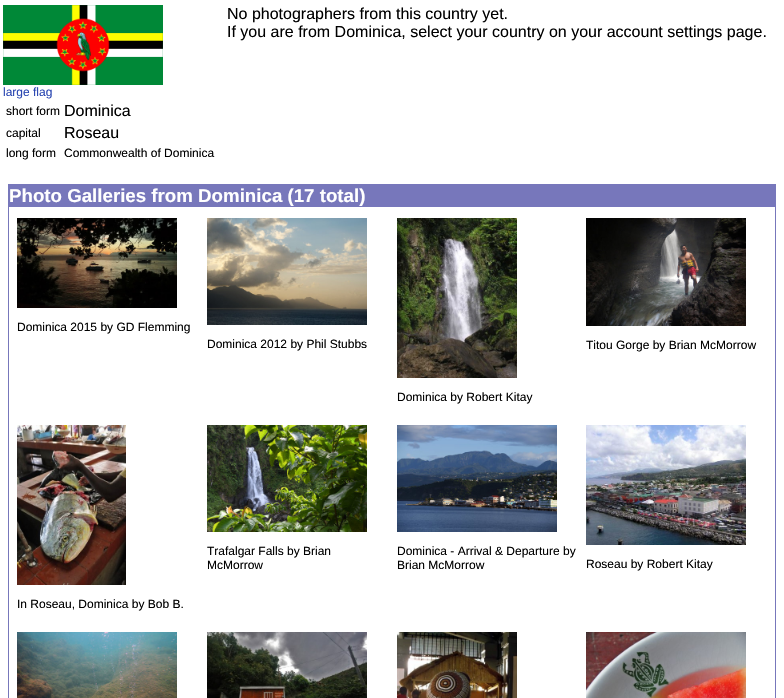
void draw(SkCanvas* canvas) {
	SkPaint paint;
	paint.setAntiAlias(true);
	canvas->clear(0xffffffff);
	SkFont f1(fontMgr->matchFamilyStyle("Liberation Sans", SkFontStyle::Normal()), 16);
	f1.setSubpixel(true);
	paint.setColor(0xff000000);
	canvas->drawString("No photographers from this country yet.", 227, 19, f1, paint);
	canvas->drawString("If you are from Dominica, select your country on your account settings page.", 227, 37, f1, paint);
	canvas->drawImageRect(SkImages::DeferredFromEncodedData(SkData::MakeFromFileName("img1.png")), SkRect::MakeXYWH(3, 5, 160, 80), SkSamplingOptions());
	SkFont f2(fontMgr->matchFamilyStyle("Liberation Sans", SkFontStyle::Normal()), 12);
	f2.setSubpixel(true);
	paint.setColor(0xff2845b1);
	canvas->drawString("large flag", 3, 96, f2, paint);
	paint.setColor(0xff000000);
	canvas->drawString("short form", 6, 115, f2, paint);
	canvas->drawString("Dominica", 64, 116, f1, paint);
	canvas->drawString("capital", 6, 137, f2, paint);
	canvas->drawString("Roseau", 64, 138, f1, paint);
	canvas->drawString("long form", 6, 157, f2, paint);
	canvas->drawString("Commonwealth of Dominica", 64, 157, f2, paint);
	paint.setColor(0xff7777bb);
	canvas->drawRect(SkRect::MakeXYWH(8, 184, 768, 514), paint);
	SkFont f3(fontMgr->matchFamilyStyle("Liberation Sans", SkFontStyle::Bold()), 18.7);
	f3.setSubpixel(true);
	paint.setColor(0xffffffff);
	canvas->drawString("Photo Galleries from Dominica (17 total)", 9, 202, f3, paint);
	canvas->drawRect(SkRect::MakeXYWH(9, 207, 766, 491), paint);
	canvas->drawImageRect(SkImages::DeferredFromEncodedData(SkData::MakeFromFileName("img2.png")), SkRect::MakeXYWH(17, 218, 160, 90), SkSamplingOptions());
	paint.setColor(0xff000000);
	canvas->drawString("Dominica 2015 by GD Flemming", 17, 331, f2, paint);
	canvas->drawImageRect(SkImages::DeferredFromEncodedData(SkData::MakeFromFileName("img3.png")), SkRect::MakeXYWH(207, 218, 160, 107), SkSamplingOptions());
	canvas->drawString("Dominica 2012 by Phil Stubbs", 207, 348, f2, paint);
	canvas->drawImageRect(SkImages::DeferredFromEncodedData(SkData::MakeFromFileName("img4.png")), SkRect::MakeXYWH(586, 218, 160, 108), SkSamplingOptions());
	canvas->drawString("Titou Gorge by Brian McMorrow", 586, 349, f2, paint);
	canvas->drawImageRect(SkImages::DeferredFromEncodedData(SkData::MakeFromFileName("img5.png")), SkRect::MakeXYWH(397, 218, 120, 160), SkSamplingOptions());
	canvas->drawString("Dominica by Robert Kitay", 397, 401, f2, paint);
	canvas->drawImageRect(SkImages::DeferredFromEncodedData(SkData::MakeFromFileName("img6.png")), SkRect::MakeXYWH(207, 425, 160, 107), SkSamplingOptions());
	canvas->drawString("Trafalgar Falls by Brian", 207, 555, f2, paint);
	canvas->drawString("McMorrow", 207, 569, f2, paint);
	canvas->drawImageRect(SkImages::DeferredFromEncodedData(SkData::MakeFromFileName("img7.png")), SkRect::MakeXYWH(397, 425, 160, 107), SkSamplingOptions());
	canvas->drawString("Dominica - Arrival & Departure by", 397, 555, f2, paint);
	canvas->drawString("Brian McMorrow", 397, 569, f2, paint);
	canvas->drawImageRect(SkImages::DeferredFromEncodedData(SkData::MakeFromFileName("img8.png")), SkRect::MakeXYWH(586, 425, 160, 120), SkSamplingOptions());
	canvas->drawString("Roseau by Robert Kitay", 586, 568, f2, paint);
	canvas->drawImageRect(SkImages::DeferredFromEncodedData(SkData::MakeFromFileName("img9.png")), SkRect::MakeXYWH(17, 425, 109, 160), SkSamplingOptions());
	canvas->drawString("In Roseau, Dominica by Bob B.", 17, 608, f2, paint);
	canvas->drawImageRect(SkImages::DeferredFromEncodedData(SkData::MakeFromFileName("img10.png")), SkRect::MakeXYWH(17, 632, 160, 66), SkSamplingOptions());
	canvas->drawImageRect(SkImages::DeferredFromEncodedData(SkData::MakeFromFileName("img11.png")), SkRect::MakeXYWH(207, 632, 160, 66), SkSamplingOptions());
	canvas->drawImageRect(SkImages::DeferredFromEncodedData(SkData::MakeFromFileName("img12.png")), SkRect::MakeXYWH(397, 632, 120, 66), SkSamplingOptions());
	canvas->drawImageRect(SkImages::DeferredFromEncodedData(SkData::MakeFromFileName("img13.png")), SkRect::MakeXYWH(586, 632, 160, 66), SkSamplingOptions());
}
